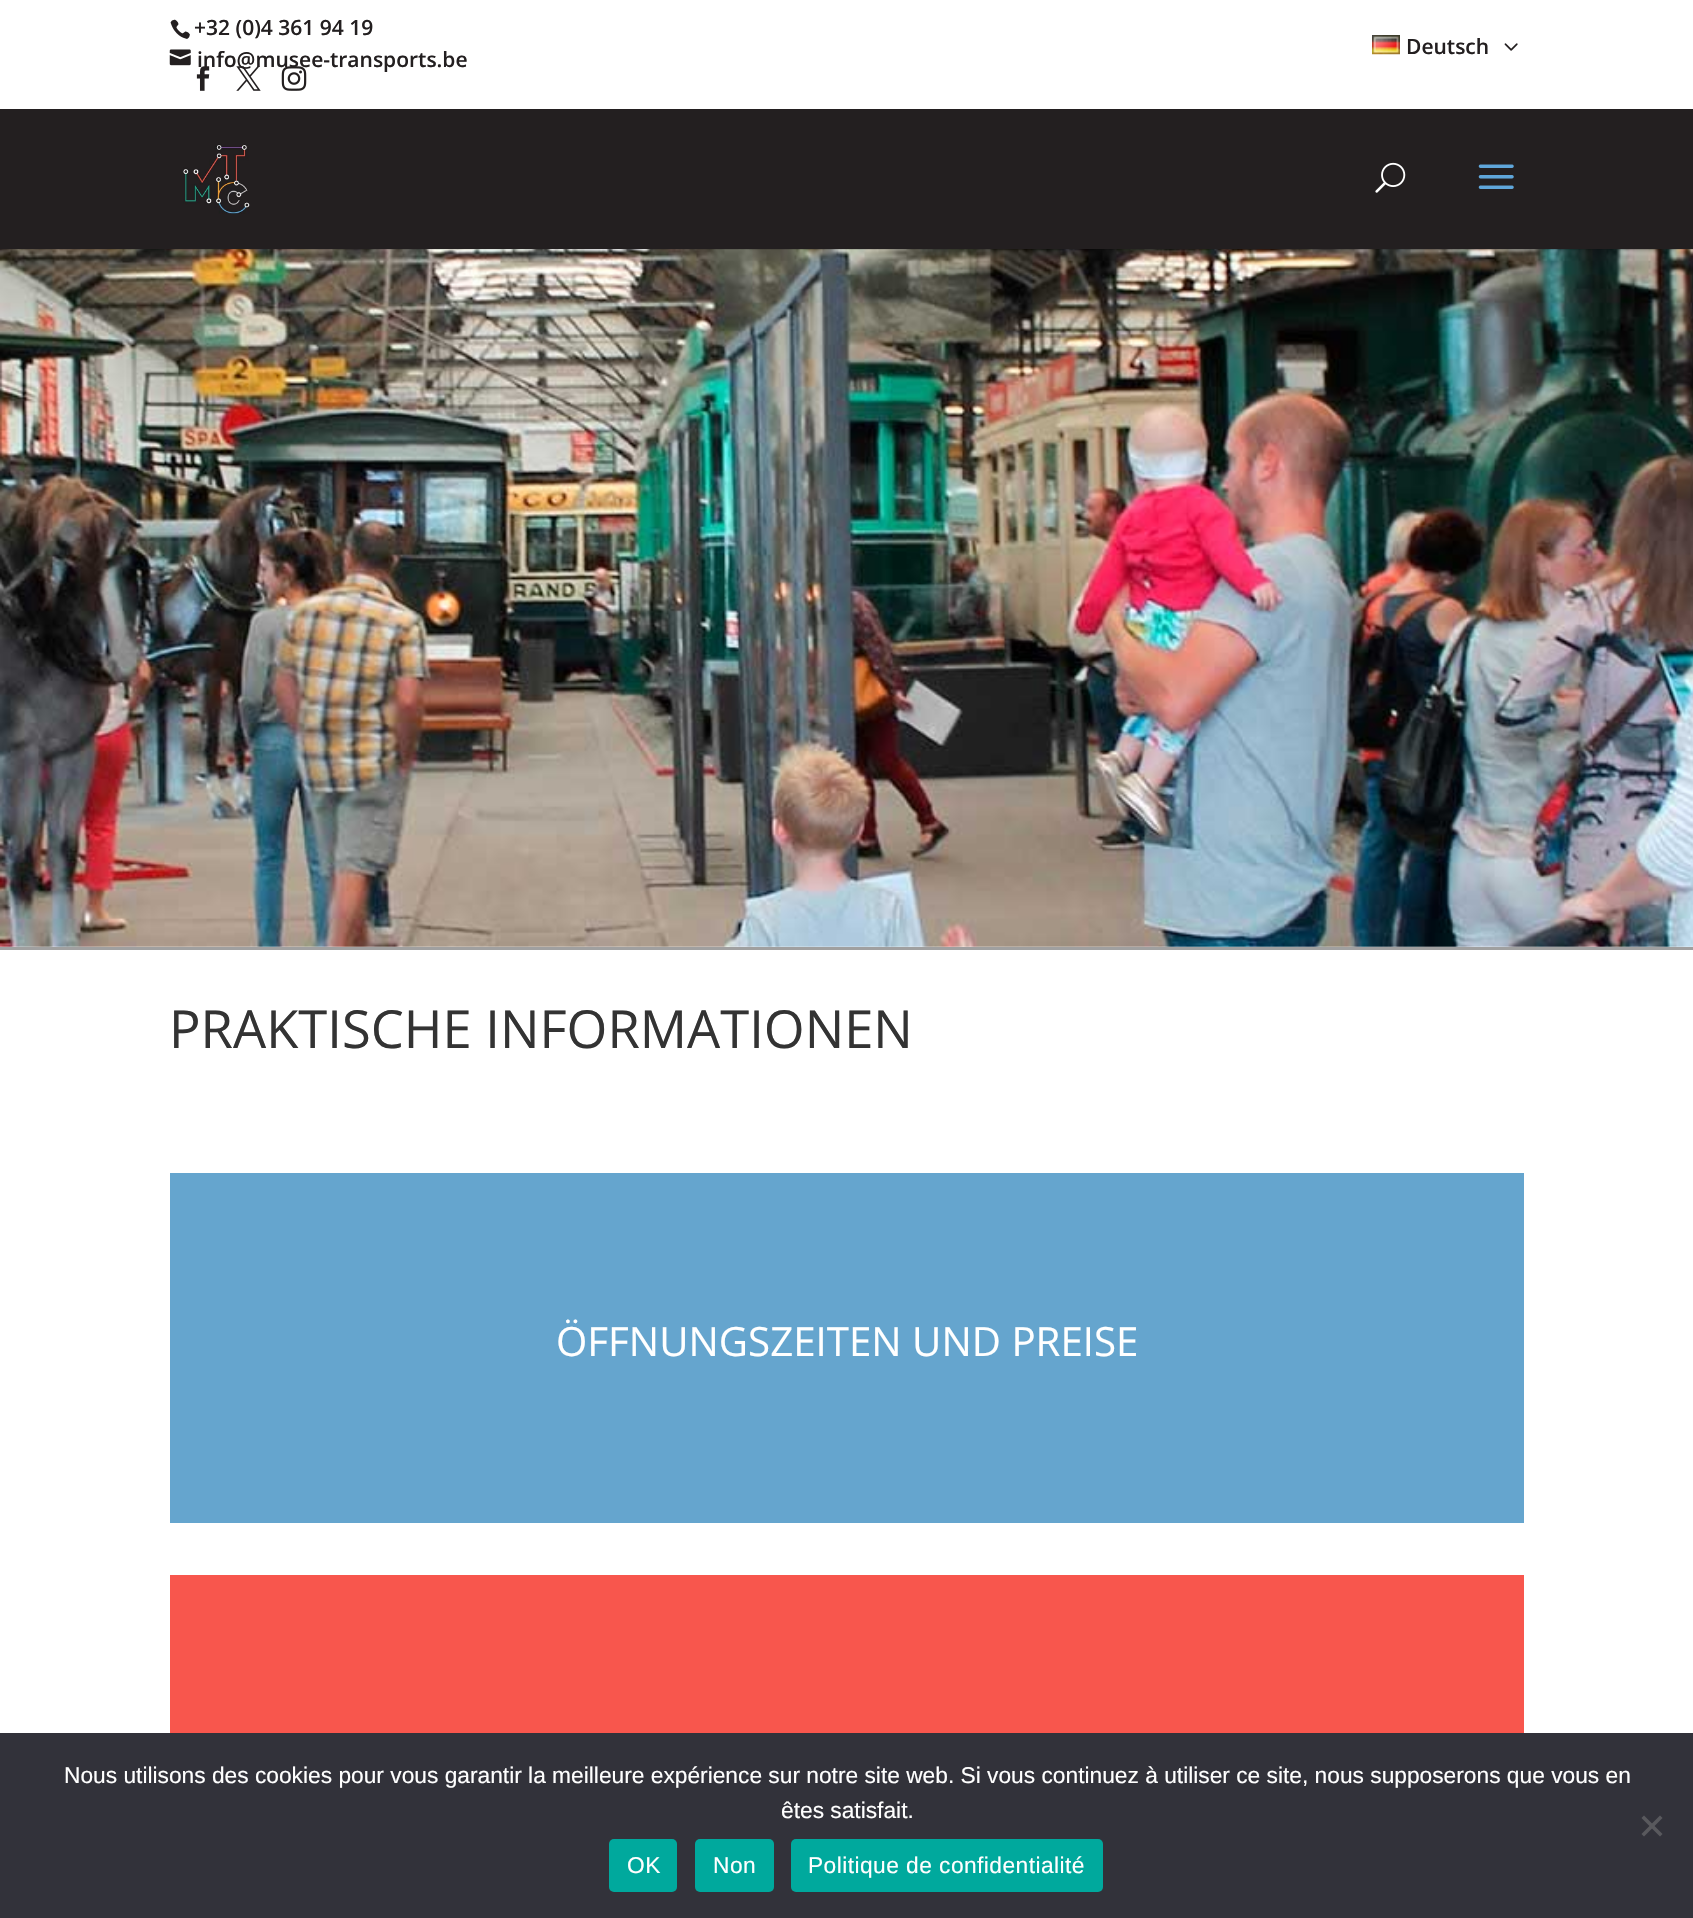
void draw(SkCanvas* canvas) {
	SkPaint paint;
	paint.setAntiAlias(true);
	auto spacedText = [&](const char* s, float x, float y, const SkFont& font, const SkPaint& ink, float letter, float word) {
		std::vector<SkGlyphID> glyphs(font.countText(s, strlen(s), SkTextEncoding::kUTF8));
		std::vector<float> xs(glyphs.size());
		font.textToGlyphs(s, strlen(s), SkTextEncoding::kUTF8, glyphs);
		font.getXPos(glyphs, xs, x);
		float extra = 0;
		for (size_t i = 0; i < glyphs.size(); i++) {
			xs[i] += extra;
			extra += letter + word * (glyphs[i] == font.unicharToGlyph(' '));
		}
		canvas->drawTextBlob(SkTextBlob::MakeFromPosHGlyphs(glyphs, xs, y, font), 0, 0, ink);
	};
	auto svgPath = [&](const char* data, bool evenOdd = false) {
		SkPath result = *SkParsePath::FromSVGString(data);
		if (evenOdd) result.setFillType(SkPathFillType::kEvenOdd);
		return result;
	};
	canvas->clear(0xffffffff);
	canvas->drawImageRect(SkImages::DeferredFromEncodedData(SkData::MakeFromFileName("img1.png")), SkRect::MakeXYWH(170, 19, 20, 20), SkSamplingOptions());
	SkFont f1(fontMgr->matchFamilyStyle("Open Sans", SkFontStyle(600, SkFontStyle::kNormal_Width, SkFontStyle::kUpright_Slant)), 21);
	f1.setSubpixel(true);
	paint.setColor(0xff231f20);
	canvas->drawString("+32 (0)4 361 94 19", 194, 35, f1, paint);
	canvas->drawImageRect(SkImages::DeferredFromEncodedData(SkData::MakeFromFileName("img2.png")), SkRect::MakeXYWH(169, 49, 22, 17), SkSamplingOptions());
	canvas->drawString("info@musee-transports.be", 197, 67, f1, paint);
	canvas->drawImageRect(SkImages::DeferredFromEncodedData(SkData::MakeFromFileName("img3.png")), SkRect::MakeXYWH(196, 66, 14, 25), SkSamplingOptions());
	canvas->drawImageRect(SkImages::DeferredFromEncodedData(SkData::MakeFromFileName("img4.png")), SkRect::MakeXYWH(236, 66, 25, 25), SkSamplingOptions());
	canvas->drawImageRect(SkImages::DeferredFromEncodedData(SkData::MakeFromFileName("img5.png")), SkRect::MakeXYWH(281, 66, 26, 25), SkSamplingOptions());
	canvas->drawImageRect(SkImages::DeferredFromEncodedData(SkData::MakeFromFileName("img6.png")), SkRect::MakeXYWH(1372, 35, 28, 20), SkSamplingOptions());
	canvas->drawString("Deutsch", 1406, 54, f1, paint);
	canvas->drawImageRect(SkImages::DeferredFromEncodedData(SkData::MakeFromFileName("img7.png")), SkRect::MakeXYWH(1504, 43, 14, 8), SkSamplingOptions());
	canvas->drawImageRect(SkImages::DeferredFromEncodedData(SkData::MakeFromFileName("img11.png")), SkRect::MakeXYWH(0, 249, 1693, 698), SkSamplingOptions());
	paint.setColor(0x1a000000);
	canvas->drawRect(SkRect::MakeXYWH(0, 249, 1693, 1), paint);
	paint.setColor(0xff231f20);
	canvas->drawRect(SkRect::MakeXYWH(0, 109, 1693, 140), paint);
	canvas->drawImageRect(SkImages::DeferredFromEncodedData(SkData::MakeFromFileName("img8.png")), SkRect::MakeXYWH(183, 144, 67, 70), SkSamplingOptions());
	canvas->drawImageRect(SkImages::DeferredFromEncodedData(SkData::MakeFromFileName("img9.png")), SkRect::MakeXYWH(1375, 162, 31, 31), SkSamplingOptions());
	canvas->drawImageRect(SkImages::DeferredFromEncodedData(SkData::MakeFromFileName("img10.png")), SkRect::MakeXYWH(1478, 164, 36, 25), SkSamplingOptions());
	paint.setColor(0xffa0a0a0);
	canvas->drawRect(SkRect::MakeXYWH(0, 947, 1693, 3), paint);
	SkFont f2(fontMgr->matchFamilyStyle("Open Sans", SkFontStyle::Normal()), 52.5);
	f2.setSubpixel(true);
	paint.setColor(0xff333333);
	canvas->drawString("PRAKTISCHE INFORMATIONEN", 169, 1048, f2, paint);
	paint.setColor(0xff65a5ce);
	canvas->drawRect(SkRect::MakeXYWH(170, 1173, 1354, 350), paint);
	SkFont f3(fontMgr->matchFamilyStyle("Open Sans", SkFontStyle::Normal()), 40.25);
	f3.setSubpixel(true);
	paint.setColor(0xffffffff);
	canvas->drawString("ÖFFNUNGSZEITEN UND PREISE", 556, 1356, f3, paint);
	paint.setColor(0xfff8564d);
	canvas->drawRect(SkRect::MakeXYWH(170, 1575, 1354, 158), paint);
	paint.setColor(0xff32323a);
	canvas->drawRect(SkRect::MakeXYWH(0, 1733, 1693, 185), paint);
	SkFont f4(fontMgr->matchFamilyStyle("Liberation Sans", SkFontStyle::Normal()), 22.75);
	f4.setSubpixel(true);
	paint.setColor(0xffffffff);
	canvas->drawString("Nous utilisons des cookies pour vous garantir la meilleure expérience sur notre site web. Si vous continuez à utiliser ce site, nous supposerons que vous en", 64, 1783, f4, paint);
	canvas->drawString("êtes satisfait.", 781, 1818, f4, paint);
	paint.setColor(0xff59595d);
	canvas->drawPath(svgPath("M1660 1815.5L1662.5 1818L1644 1836.5L1641.5 1834Z"), paint);
	canvas->drawPath(svgPath("M1641.5 1818L1644 1815.5L1662.5 1834L1660 1836.5Z"), paint);
	paint.setColor(0xff00a99d);
	canvas->drawRoundRect(SkRect::MakeXYWH(609, 1839, 68, 53), 5, 5, paint);
	paint.setColor(0xffffffff);
	spacedText("OK", 627, 1873, f4, paint, 0.45, 0);
	paint.setColor(0xff00a99d);
	canvas->drawRoundRect(SkRect::MakeXYWH(695, 1839, 79, 53), 5, 5, paint);
	paint.setColor(0xffffffff);
	spacedText("Non", 713, 1873, f4, paint, 0.45, 0);
	paint.setColor(0xff00a99d);
	canvas->drawRoundRect(SkRect::MakeXYWH(791, 1839, 312, 53), 5, 5, paint);
	paint.setColor(0xffffffff);
	spacedText("Politique de confidentialité", 808, 1873, f4, paint, 0.45, 0);
}
